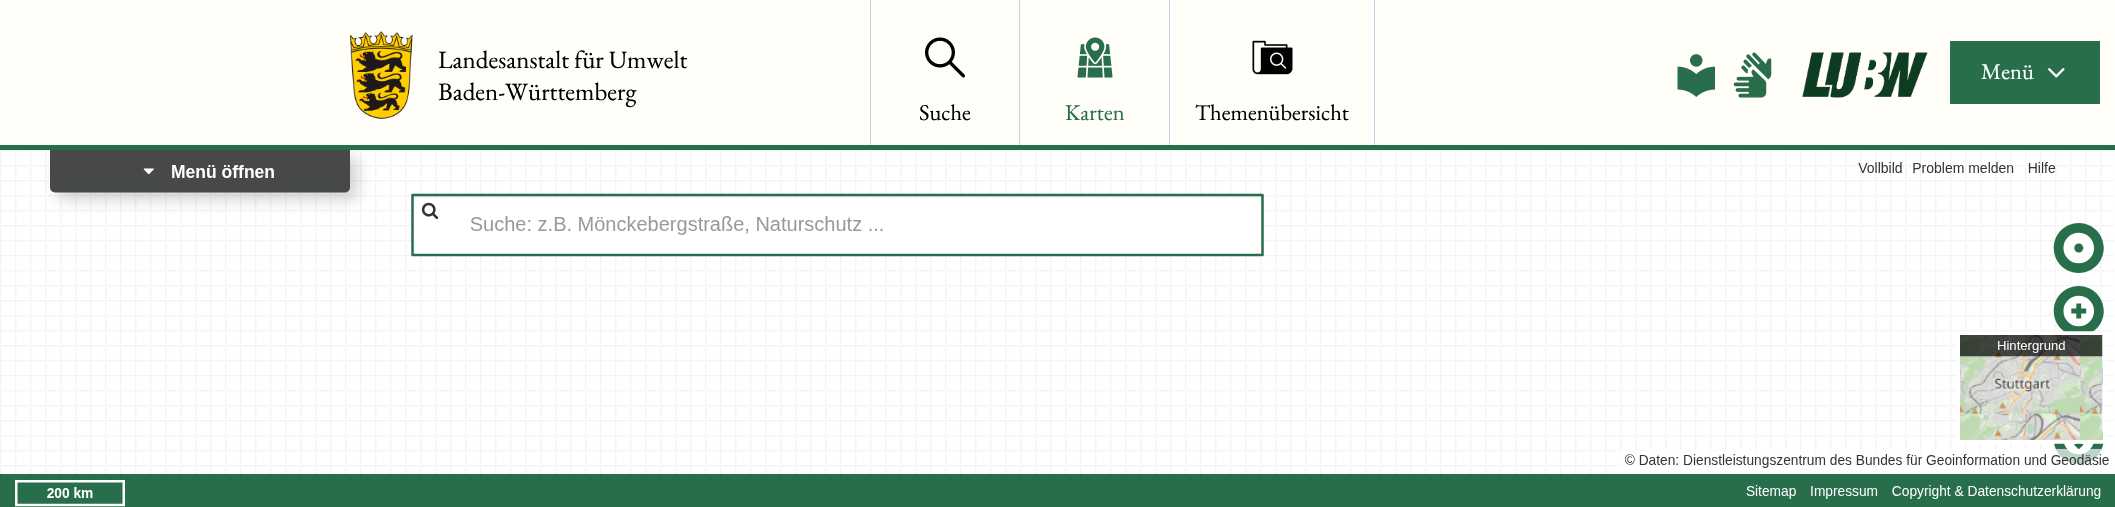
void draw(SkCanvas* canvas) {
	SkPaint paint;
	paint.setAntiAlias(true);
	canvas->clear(0xfffffef9);
	paint.setColor(0xff296e4b);
	canvas->drawRect(SkRect::MakeXYWH(0, 145, 2115, 5), paint);
	canvas->drawImageRect(SkImages::DeferredFromEncodedData(SkData::MakeFromFileName("img1.png")), SkRect::MakeXYWH(350, 31, 63, 88), SkSamplingOptions());
	SkFont f1(fontMgr->matchFamilyStyle("EB Garamond", SkFontStyle::Normal()), 25);
	f1.setSubpixel(true);
	paint.setColor(0xff000000);
	canvas->drawString("Landesanstalt für Umwelt", 438, 68, f1, paint);
	canvas->drawString("Baden-Württemberg", 438, 100, f1, paint);
	canvas->drawImageRect(SkImages::DeferredFromEncodedData(SkData::MakeFromFileName("img2.png")), SkRect::MakeXYWH(1677, 54, 38, 43), SkSamplingOptions());
	canvas->drawImageRect(SkImages::DeferredFromEncodedData(SkData::MakeFromFileName("img3.png")), SkRect::MakeXYWH(1733, 52, 39, 46), SkSamplingOptions());
	canvas->drawImageRect(SkImages::DeferredFromEncodedData(SkData::MakeFromFileName("img4.png")), SkRect::MakeXYWH(1802, 52, 126, 46), SkSamplingOptions());
	paint.setColor(0xff296e4b);
	canvas->drawRect(SkRect::MakeXYWH(1950, 41, 150, 63), paint);
	SkFont f2(fontMgr->matchFamilyStyle("EB Garamond", SkFontStyle::Normal()), 22.5);
	f2.setSubpixel(true);
	paint.setColor(0xffffffff);
	canvas->drawString("Menü", 1981, 79, f2, paint);
	canvas->drawImageRect(SkImages::DeferredFromEncodedData(SkData::MakeFromFileName("img5.png")), SkRect::MakeXYWH(2047, 68, 18, 10), SkSamplingOptions());
	paint.setColor(0xffc6cfe2);
	canvas->drawRect(SkRect::MakeXYWH(1019, 0, 1, 145), paint);
	canvas->drawRect(SkRect::MakeXYWH(870, 0, 1, 145), paint);
	canvas->drawImageRect(SkImages::DeferredFromEncodedData(SkData::MakeFromFileName("img6.png")), SkRect::MakeXYWH(925, 37, 40, 41), SkSamplingOptions());
	paint.setColor(0xff000000);
	canvas->drawString("Suche", 919, 120, f2, paint);
	paint.setColor(0xffc6cfe2);
	canvas->drawRect(SkRect::MakeXYWH(1169, 0, 1, 145), paint);
	canvas->drawImageRect(SkImages::DeferredFromEncodedData(SkData::MakeFromFileName("img7.png")), SkRect::MakeXYWH(1077, 37, 36, 41), SkSamplingOptions());
	paint.setColor(0xff296e4b);
	canvas->drawString("Karten", 1065, 120, f2, paint);
	paint.setColor(0xffc6cfe2);
	canvas->drawRect(SkRect::MakeXYWH(1374, 0, 1, 145), paint);
	canvas->drawImageRect(SkImages::DeferredFromEncodedData(SkData::MakeFromFileName("img8.png")), SkRect::MakeXYWH(1252, 40, 41, 35), SkSamplingOptions());
	paint.setColor(0xff000000);
	canvas->drawString("Themenübersicht", 1195, 120, f2, paint);
	canvas->drawImageRect(SkImages::DeferredFromEncodedData(SkData::MakeFromFileName("img9.png")), SkRect::MakeXYWH(0, 150, 2115, 357), SkSamplingOptions());
}
